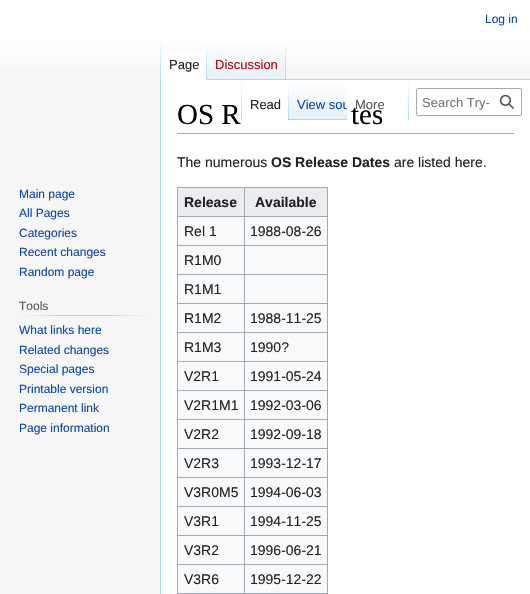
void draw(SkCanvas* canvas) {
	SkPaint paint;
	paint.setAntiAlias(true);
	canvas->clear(0xfff6f6f6);
	{
		const SkColor colors[] = {0xffffffff, 0xfff6f6f6};
		const float stops[] = {0.5, 1};
		const SkPoint ends[] = {{265, 0}, {265, 80}};
		paint.setShader(SkGradientShader::MakeLinear(ends, colors, stops, 2, SkTileMode::kClamp));
		paint.setAlpha(255);
	}
	canvas->drawRect(SkRect::MakeXYWH(0, 0, 530, 69), paint);
	SkFont f1(fontMgr->matchFamilyStyle("Liberation Sans", SkFontStyle::Normal()), 12);
	f1.setSubpixel(true);
	paint.setShader(nullptr);
	paint.setColor(0xff0645ad);
	canvas->drawString("Log in", 485, 23, f1, paint);
	paint.setColor(0xffa7d7f9);
	canvas->drawRect(SkRect::MakeXYWH(160, 79, 1, 515), paint);
	{
		const SkColor colors[] = {0x00a7d7f9, 0xffa7d7f9};
		const float stops[] = {0, 1};
		const SkPoint ends[] = {{161, 40}, {161, 80}};
		paint.setShader(SkGradientShader::MakeLinear(ends, colors, stops, 2, SkTileMode::kClamp));
		paint.setAlpha(255);
	}
	canvas->drawRect(SkRect::MakeXYWH(160, 40, 1, 40), paint);
	paint.setShader(nullptr);
	paint.setColor(0xffffffff);
	canvas->drawRect(SkRect::MakeXYWH(161, 51, 45, 29), paint);
	{
		const SkColor colors[] = {0xffffffff, 0xffa7d7f9};
		const float stops[] = {0, 1};
		const SkPoint ends[] = {{207, 40}, {207, 80}};
		paint.setShader(SkGradientShader::MakeLinear(ends, colors, stops, 2, SkTileMode::kClamp));
		paint.setAlpha(255);
	}
	canvas->drawRect(SkRect::MakeXYWH(206, 40, 1, 40), paint);
	SkFont f2(fontMgr->matchFamilyStyle("Liberation Sans", SkFontStyle::Normal()), 13);
	f2.setSubpixel(true);
	paint.setShader(nullptr);
	paint.setColor(0xff202122);
	canvas->drawString("Page", 169, 69, f2, paint);
	{
		const SkColor colors[] = {0xff77c1f6, 0xffe8f2f8, 0xffffffff};
		const float stops[] = {0, 0.03, 1};
		const SkPoint ends[] = {{247, 80}, {247, 40}};
		paint.setShader(SkGradientShader::MakeLinear(ends, colors, stops, 3, SkTileMode::kClamp));
		paint.setAlpha(255);
	}
	canvas->drawRect(SkRect::MakeXYWH(207, 46, 79, 34), paint);
	{
		const SkColor colors[] = {0x00a7d7f9, 0xffa7d7f9};
		const float stops[] = {0, 1};
		const SkPoint ends[] = {{286, 40}, {286, 80}};
		paint.setShader(SkGradientShader::MakeLinear(ends, colors, stops, 2, SkTileMode::kClamp));
		paint.setAlpha(255);
	}
	canvas->drawRect(SkRect::MakeXYWH(285, 40, 1, 40), paint);
	paint.setShader(nullptr);
	paint.setColor(0xffba0000);
	canvas->drawString("Discussion", 215, 69, f2, paint);
	paint.setColor(0xffffffff);
	canvas->drawRect(SkRect::MakeXYWH(161, 80, 369, 514), paint);
	{
		const SkColor colors[] = {0x00a7d7f9, 0xffa7d7f9};
		const float stops[] = {0, 1};
		const SkPoint ends[] = {{242, 80}, {242, 120}};
		paint.setShader(SkGradientShader::MakeLinear(ends, colors, stops, 2, SkTileMode::kClamp));
		paint.setAlpha(255);
	}
	canvas->drawRect(SkRect::MakeXYWH(241, 80, 1, 40), paint);
	{
		const SkColor colors[] = {0xffffffff, 0xffa7d7f9};
		const float stops[] = {0, 1};
		const SkPoint ends[] = {{289, 80}, {289, 120}};
		paint.setShader(SkGradientShader::MakeLinear(ends, colors, stops, 2, SkTileMode::kClamp));
		paint.setAlpha(255);
	}
	canvas->drawRect(SkRect::MakeXYWH(288, 80, 1, 40), paint);
	paint.setShader(nullptr);
	paint.setColor(0xff202122);
	canvas->drawString("Read", 250, 109, f2, paint);
	{
		const SkColor colors[] = {0xff77c1f6, 0xffe8f2f8, 0xffffffff};
		const float stops[] = {0, 0.03, 1};
		const SkPoint ends[] = {{318, 120}, {318, 80}};
		paint.setShader(SkGradientShader::MakeLinear(ends, colors, stops, 3, SkTileMode::kClamp));
		paint.setAlpha(255);
	}
	canvas->drawRect(SkRect::MakeXYWH(289, 84, 58, 36), paint);
	canvas->save();
	canvas->clipRect(SkRect::MakeXYWH(289, 80, 58, 40));
	paint.setShader(nullptr);
	paint.setColor(0xff0645ad);
	canvas->drawString("View sou", 297, 109, f2, paint);
	canvas->restore();
	{
		const SkColor colors[] = {0xffffffff, 0xffa7d7f9};
		const float stops[] = {0, 1};
		const SkPoint ends[] = {{409, 80}, {409, 120}};
		paint.setShader(SkGradientShader::MakeLinear(ends, colors, stops, 2, SkTileMode::kClamp));
		paint.setAlpha(255);
	}
	canvas->drawRect(SkRect::MakeXYWH(408, 80, 1, 40), paint);
	paint.setShader(nullptr);
	paint.setColor(0xff54595d);
	canvas->drawString("More", 355, 109, f2, paint);
	paint.setStroke(true);
	paint.setStrokeWidth(1);
	paint.setColor(0xffa2a9b1);
	canvas->drawRoundRect(SkRect::MakeXYWH(416.5, 88.5, 105, 27), 1.5, 1.5, paint);
	paint.setStroke(false);
	paint.setColor(0xff72777d);
	canvas->drawString("Search Try-", 422, 107, f2, paint);
	canvas->drawImageRect(SkImages::DeferredFromEncodedData(SkData::MakeFromFileName("img1.png")), SkRect::MakeXYWH(499, 94, 15, 15), SkSamplingOptions());
	paint.setColor(0xff0645ad);
	canvas->drawString("Main page", 19, 198, f1, paint);
	canvas->drawString("All Pages", 19, 217, f1, paint);
	canvas->drawString("Categories", 19, 237, f1, paint);
	canvas->drawString("Recent changes", 19, 256, f1, paint);
	canvas->drawString("Random page", 19, 276, f1, paint);
	{
		const SkColor colors[] = {0xfff6f6f6, 0xffc8ccd1, 0xffc8ccd1, 0xfff6f6f6};
		const float stops[] = {0, 0.33, 0.66, 1};
		const SkPoint ends[] = {{19, 316}, {150, 316}};
		paint.setShader(SkGradientShader::MakeLinear(ends, colors, stops, 4, SkTileMode::kClamp));
		paint.setAlpha(255);
	}
	canvas->drawRect(SkRect::MakeXYWH(19, 315, 131, 1), paint);
	paint.setShader(nullptr);
	paint.setColor(0xff54595d);
	canvas->drawString("Tools", 19, 310, f1, paint);
	paint.setColor(0xff0645ad);
	canvas->drawString("What links here", 19, 334, f1, paint);
	canvas->drawString("Related changes", 19, 354, f1, paint);
	canvas->drawString("Special pages", 19, 373, f1, paint);
	canvas->drawString("Printable version", 19, 393, f1, paint);
	canvas->drawString("Permanent link", 19, 412, f1, paint);
	canvas->drawString("Page information", 19, 432, f1, paint);
	paint.setColor(0xffa7d7f9);
	canvas->drawRect(SkRect::MakeXYWH(286, 79, 244, 1), paint);
	paint.setColor(0xffa2a9b1);
	canvas->drawRect(SkRect::MakeXYWH(177, 133, 337, 1), paint);
	SkFont f3(fontMgr->matchFamilyStyle("Liberation Serif", SkFontStyle::Normal()), 29);
	f3.setSubpixel(true);
	paint.setColor(0xff000000);
	canvas->drawString("OS R", 177, 124, f3, paint);
	canvas->drawString("tes", 351, 124, f3, paint);
	SkFont f4(fontMgr->matchFamilyStyle("Liberation Sans", SkFontStyle::Normal()), 14);
	f4.setSubpixel(true);
	paint.setColor(0xff202122);
	canvas->drawString("The numerous", 177, 167, f4, paint);
	SkFont f5(fontMgr->matchFamilyStyle("Liberation Sans", SkFontStyle::Bold()), 14);
	f5.setSubpixel(true);
	canvas->drawString("OS Release Dates", 271, 167, f5, paint);
	canvas->drawString("are listed here.", 394, 167, f4, paint);
	paint.setColor(0xfff8f9fa);
	canvas->drawRect(SkRect::MakeXYWH(178, 217, 149, 376), paint);
	paint.setColor(0xffa2a9b1);
	canvas->drawRect(SkRect::MakeXYWH(177, 187, 151, 1), paint);
	canvas->drawRect(SkRect::MakeXYWH(327, 187, 1, 407), paint);
	canvas->drawRect(SkRect::MakeXYWH(177, 187, 1, 407), paint);
	paint.setColor(0xffeaecf0);
	canvas->drawRect(SkRect::MakeXYWH(178, 188, 66, 28), paint);
	paint.setColor(0xff202122);
	canvas->drawString("Release", 184, 207, f5, paint);
	paint.setColor(0xffeaecf0);
	canvas->drawRect(SkRect::MakeXYWH(245, 188, 82, 28), paint);
	paint.setColor(0xffa2a9b1);
	canvas->drawRect(SkRect::MakeXYWH(244, 216, 84, 1), paint);
	canvas->drawRect(SkRect::MakeXYWH(244, 245, 84, 1), paint);
	canvas->drawRect(SkRect::MakeXYWH(244, 274, 84, 1), paint);
	canvas->drawRect(SkRect::MakeXYWH(244, 303, 84, 1), paint);
	canvas->drawRect(SkRect::MakeXYWH(244, 332, 84, 1), paint);
	canvas->drawRect(SkRect::MakeXYWH(244, 361, 84, 1), paint);
	canvas->drawRect(SkRect::MakeXYWH(244, 390, 84, 1), paint);
	canvas->drawRect(SkRect::MakeXYWH(244, 419, 84, 1), paint);
	canvas->drawRect(SkRect::MakeXYWH(244, 448, 84, 1), paint);
	canvas->drawRect(SkRect::MakeXYWH(244, 477, 84, 1), paint);
	canvas->drawRect(SkRect::MakeXYWH(244, 506, 84, 1), paint);
	canvas->drawRect(SkRect::MakeXYWH(244, 535, 84, 1), paint);
	canvas->drawRect(SkRect::MakeXYWH(244, 564, 84, 1), paint);
	canvas->drawRect(SkRect::MakeXYWH(177, 593, 151, 1), paint);
	canvas->drawRect(SkRect::MakeXYWH(244, 564, 1, 30), paint);
	canvas->drawRect(SkRect::MakeXYWH(177, 564, 68, 1), paint);
	canvas->drawRect(SkRect::MakeXYWH(244, 535, 1, 30), paint);
	canvas->drawRect(SkRect::MakeXYWH(177, 535, 68, 1), paint);
	canvas->drawRect(SkRect::MakeXYWH(244, 506, 1, 30), paint);
	canvas->drawRect(SkRect::MakeXYWH(177, 506, 68, 1), paint);
	canvas->drawRect(SkRect::MakeXYWH(244, 477, 1, 30), paint);
	canvas->drawRect(SkRect::MakeXYWH(177, 477, 68, 1), paint);
	canvas->drawRect(SkRect::MakeXYWH(244, 448, 1, 30), paint);
	canvas->drawRect(SkRect::MakeXYWH(177, 448, 68, 1), paint);
	canvas->drawRect(SkRect::MakeXYWH(244, 419, 1, 30), paint);
	canvas->drawRect(SkRect::MakeXYWH(177, 419, 68, 1), paint);
	canvas->drawRect(SkRect::MakeXYWH(244, 390, 1, 30), paint);
	canvas->drawRect(SkRect::MakeXYWH(177, 390, 68, 1), paint);
	canvas->drawRect(SkRect::MakeXYWH(244, 361, 1, 30), paint);
	canvas->drawRect(SkRect::MakeXYWH(177, 361, 68, 1), paint);
	canvas->drawRect(SkRect::MakeXYWH(244, 332, 1, 30), paint);
	canvas->drawRect(SkRect::MakeXYWH(177, 332, 68, 1), paint);
	canvas->drawRect(SkRect::MakeXYWH(244, 303, 1, 30), paint);
	canvas->drawRect(SkRect::MakeXYWH(177, 303, 68, 1), paint);
	canvas->drawRect(SkRect::MakeXYWH(244, 274, 1, 30), paint);
	canvas->drawRect(SkRect::MakeXYWH(177, 274, 68, 1), paint);
	canvas->drawRect(SkRect::MakeXYWH(244, 245, 1, 30), paint);
	canvas->drawRect(SkRect::MakeXYWH(177, 245, 68, 1), paint);
	canvas->drawRect(SkRect::MakeXYWH(244, 216, 1, 30), paint);
	canvas->drawRect(SkRect::MakeXYWH(177, 216, 68, 1), paint);
	canvas->drawRect(SkRect::MakeXYWH(244, 187, 1, 30), paint);
	paint.setColor(0xff202122);
	canvas->drawString("Available", 255, 207, f5, paint);
	canvas->drawString("Rel 1", 184, 236, f4, paint);
	canvas->drawString("1988-08-26", 250, 236, f4, paint);
	canvas->drawString("R1M0", 184, 265, f4, paint);
	canvas->drawString("R1M1", 184, 294, f4, paint);
	canvas->drawString("R1M2", 184, 323, f4, paint);
	canvas->drawString("1988-11-25", 250, 323, f4, paint);
	canvas->drawString("R1M3", 184, 352, f4, paint);
	canvas->drawString("1990?", 250, 352, f4, paint);
	canvas->drawString("V2R1", 184, 381, f4, paint);
	canvas->drawString("1991-05-24", 250, 381, f4, paint);
	canvas->drawString("V2R1M1", 184, 410, f4, paint);
	canvas->drawString("1992-03-06", 250, 410, f4, paint);
	canvas->drawString("V2R2", 184, 439, f4, paint);
	canvas->drawString("1992-09-18", 250, 439, f4, paint);
	canvas->drawString("V2R3", 184, 468, f4, paint);
	canvas->drawString("1993-12-17", 250, 468, f4, paint);
	canvas->drawString("V3R0M5", 184, 497, f4, paint);
	canvas->drawString("1994-06-03", 250, 497, f4, paint);
	canvas->drawString("V3R1", 184, 526, f4, paint);
	canvas->drawString("1994-11-25", 250, 526, f4, paint);
	canvas->drawString("V3R2", 184, 555, f4, paint);
	canvas->drawString("1996-06-21", 250, 555, f4, paint);
	canvas->drawString("V3R6", 184, 584, f4, paint);
	canvas->drawString("1995-12-22", 250, 584, f4, paint);
}
